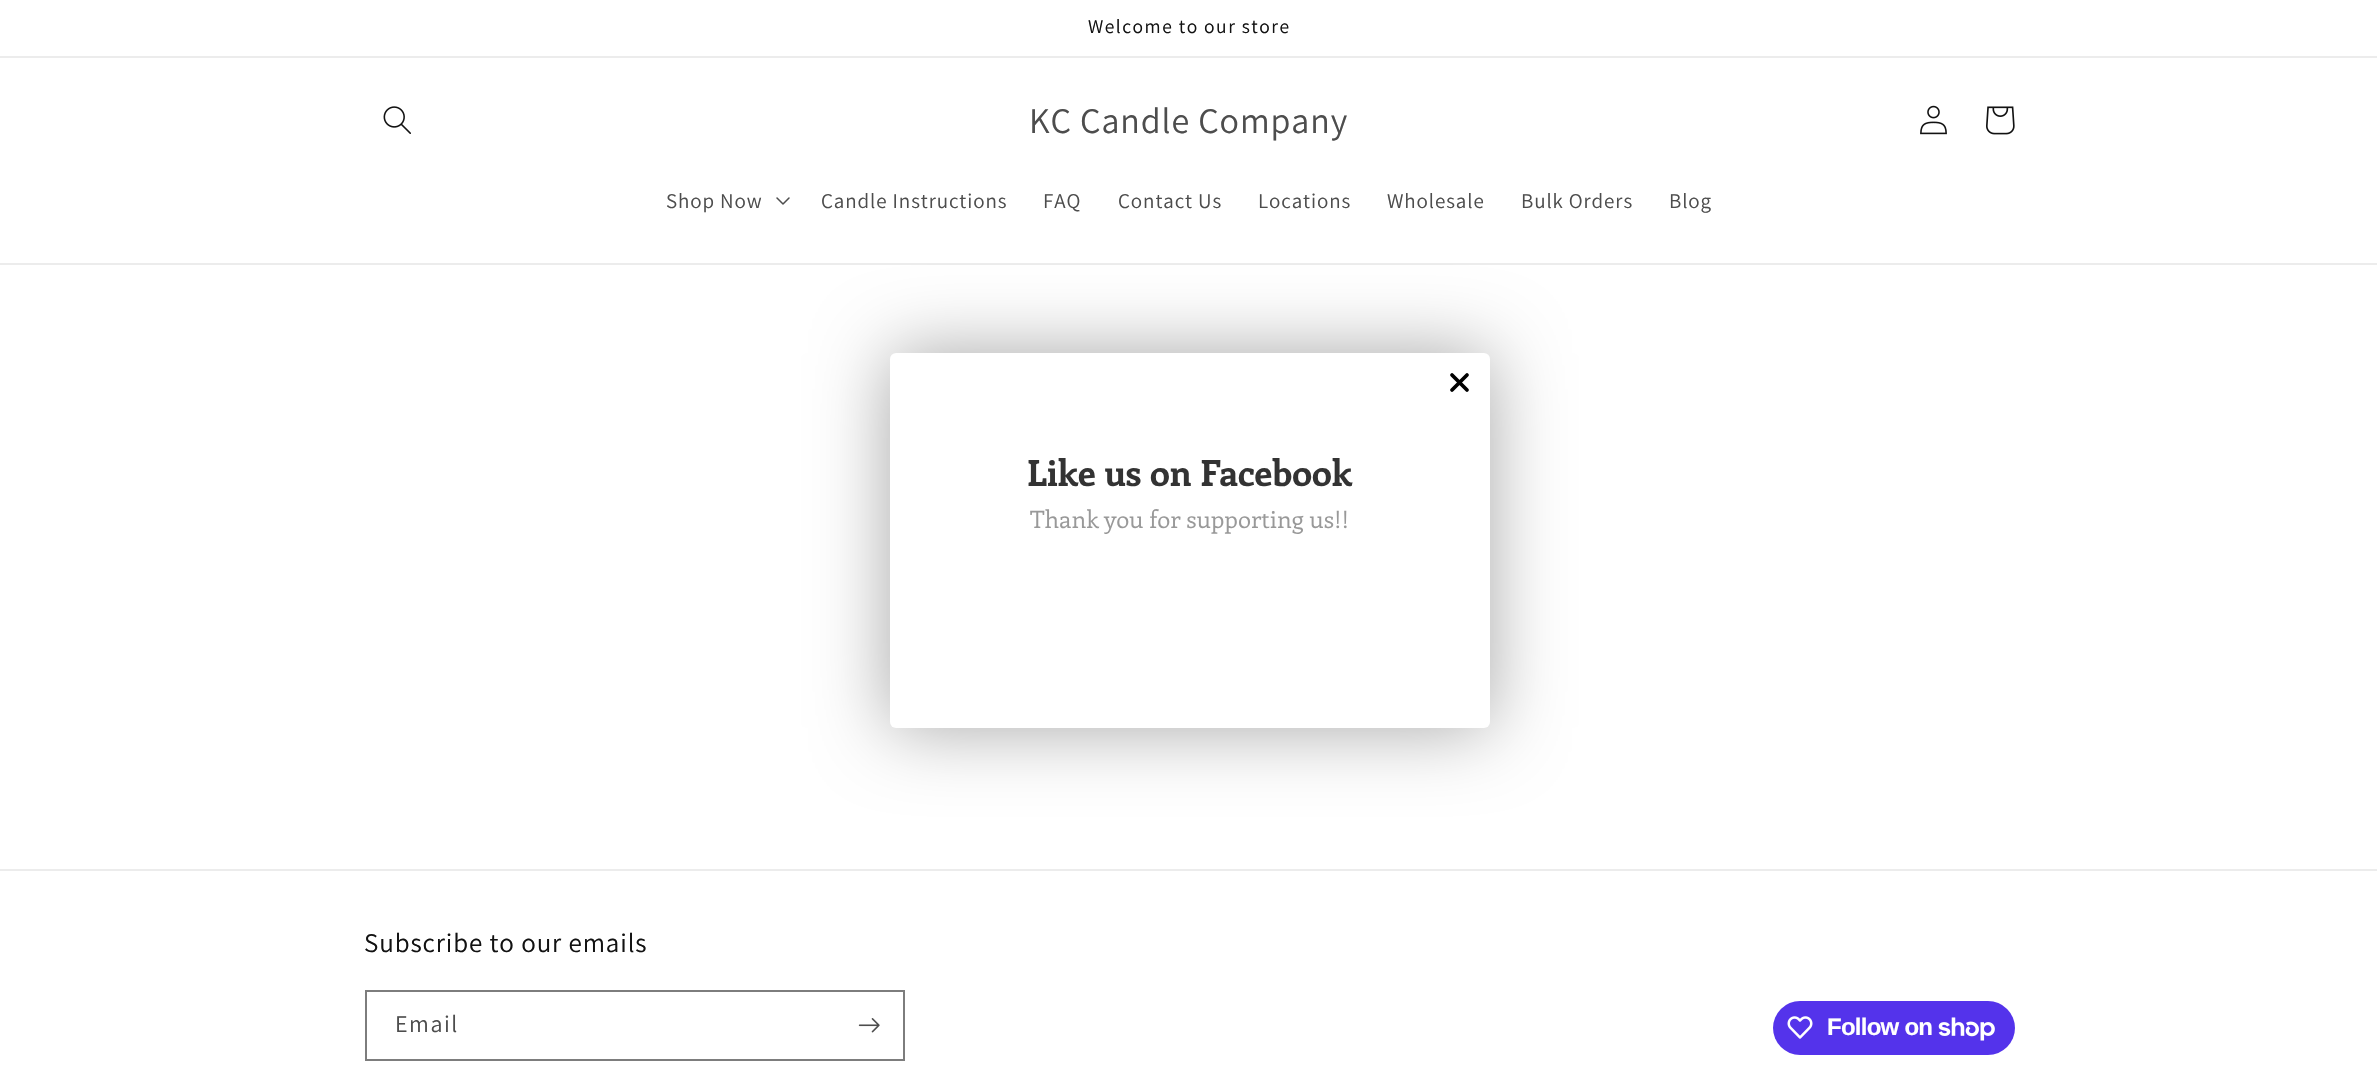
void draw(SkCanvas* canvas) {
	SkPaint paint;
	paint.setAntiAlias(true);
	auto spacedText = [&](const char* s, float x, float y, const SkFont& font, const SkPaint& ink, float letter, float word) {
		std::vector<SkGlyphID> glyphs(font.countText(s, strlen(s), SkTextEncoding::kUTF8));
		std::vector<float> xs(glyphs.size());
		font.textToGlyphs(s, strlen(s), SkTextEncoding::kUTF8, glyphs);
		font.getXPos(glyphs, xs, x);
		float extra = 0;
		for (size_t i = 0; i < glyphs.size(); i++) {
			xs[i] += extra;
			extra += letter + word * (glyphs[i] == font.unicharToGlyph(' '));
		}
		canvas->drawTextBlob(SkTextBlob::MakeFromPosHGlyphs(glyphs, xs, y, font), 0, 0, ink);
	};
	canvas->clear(0xffffffff);
	paint.setColor(0xffececec);
	canvas->drawRect(SkRect::MakeXYWH(0, 56, 2377, 2), paint);
	SkFont f1(fontMgr->matchFamilyStyle("Assistant", SkFontStyle::Normal()), 19.5);
	f1.setSubpixel(true);
	paint.setColor(0xff121212);
	spacedText("Welcome to our store", 1088, 33, f1, paint, 1.5, 0);
	paint.setColor(0xffececec);
	canvas->drawRect(SkRect::MakeXYWH(0, 263, 2377, 2), paint);
	canvas->drawImageRect(SkImages::DeferredFromEncodedData(SkData::MakeFromFileName("img1.png")), SkRect::MakeXYWH(383, 106, 28, 28), SkSamplingOptions());
	SkFont f2(fontMgr->matchFamilyStyle("Assistant", SkFontStyle::Normal()), 36);
	f2.setSubpixel(true);
	paint.setColor(0xff4d4d4d);
	spacedText("KC Candle Company", 1029, 133, f2, paint, 0.9, 0);
	canvas->drawImageRect(SkImages::DeferredFromEncodedData(SkData::MakeFromFileName("img2.png")), SkRect::MakeXYWH(1920, 105, 27, 30), SkSamplingOptions());
	canvas->drawImageRect(SkImages::DeferredFromEncodedData(SkData::MakeFromFileName("img3.png")), SkRect::MakeXYWH(1986, 106, 29, 29), SkSamplingOptions());
	SkFont f3(fontMgr->matchFamilyStyle("Assistant", SkFontStyle::Normal()), 21);
	f3.setSubpixel(true);
	spacedText("Shop Now", 666, 208, f3, paint, 0.9, 0);
	canvas->drawImageRect(SkImages::DeferredFromEncodedData(SkData::MakeFromFileName("img4.png")), SkRect::MakeXYWH(776, 197, 14, 8), SkSamplingOptions());
	spacedText("Candle Instructions", 821, 208, f3, paint, 0.9, 0);
	spacedText("FAQ", 1043, 208, f3, paint, 0.9, 0);
	spacedText("Contact Us", 1118, 208, f3, paint, 0.9, 0);
	spacedText("Locations", 1258, 208, f3, paint, 0.9, 0);
	spacedText("Wholesale", 1387, 208, f3, paint, 0.9, 0);
	spacedText("Bulk Orders", 1521, 208, f3, paint, 0.9, 0);
	spacedText("Blog", 1669, 208, f3, paint, 0.9, 0);
	paint.setColor(0x59000000);
	paint.setMaskFilter(SkMaskFilter::MakeBlur(kNormal_SkBlurStyle, 37.5));
	canvas->drawRoundRect(SkRect::MakeXYWH(890, 353, 600, 375), 6, 6, paint);
	paint.setMaskFilter(nullptr);
	paint.setColor(0xffffffff);
	canvas->drawRoundRect(SkRect::MakeXYWH(890, 353, 600, 375), 6, 6, paint);
	canvas->drawImageRect(SkImages::DeferredFromEncodedData(SkData::MakeFromFileName("img5.png")), SkRect::MakeXYWH(1028, 373, 441, 161), SkSamplingOptions());
	paint.setColor(0xffececec);
	canvas->drawRect(SkRect::MakeXYWH(0, 869, 2377, 2), paint);
	SkFont f4(fontMgr->matchFamilyStyle("Assistant", SkFontStyle::Normal()), 27);
	f4.setSubpixel(true);
	paint.setColor(0xff121212);
	spacedText("Subscribe to our emails", 364, 952, f4, paint, 0.9, 0);
	paint.setStroke(true);
	paint.setStrokeWidth(2);
	paint.setColor(0xff7d7d7d);
	canvas->drawRect(SkRect::MakeXYWH(366, 991, 538, 69), paint);
	SkFont f5(fontMgr->matchFamilyStyle("Assistant", SkFontStyle::Normal()), 24);
	f5.setSubpixel(true);
	paint.setStroke(false);
	paint.setColor(0xff4d4d4d);
	spacedText("Email", 395, 1032, f5, paint, 1.5, 0);
	canvas->drawImageRect(SkImages::DeferredFromEncodedData(SkData::MakeFromFileName("img6.png")), SkRect::MakeXYWH(858, 1018, 22, 15), SkSamplingOptions());
	paint.setColor(0xff5433eb);
	canvas->drawRoundRect(SkRect::MakeXYWH(1773, 1001, 242, 54), 27, 27, paint);
	canvas->drawImageRect(SkImages::DeferredFromEncodedData(SkData::MakeFromFileName("img7.png")), SkRect::MakeXYWH(1787, 1016, 26, 23), SkSamplingOptions());
	SkFont f6(fontMgr->matchFamilyStyle("Liberation Sans", SkFontStyle::Bold()), 24);
	f6.setSubpixel(true);
	paint.setColor(0xffffffff);
	spacedText("Follow on", 1827, 1035, f6, paint, -0.75, 0);
	canvas->drawImageRect(SkImages::DeferredFromEncodedData(SkData::MakeFromFileName("img8.png")), SkRect::MakeXYWH(1938, 1017, 57, 24), SkSamplingOptions());
}
